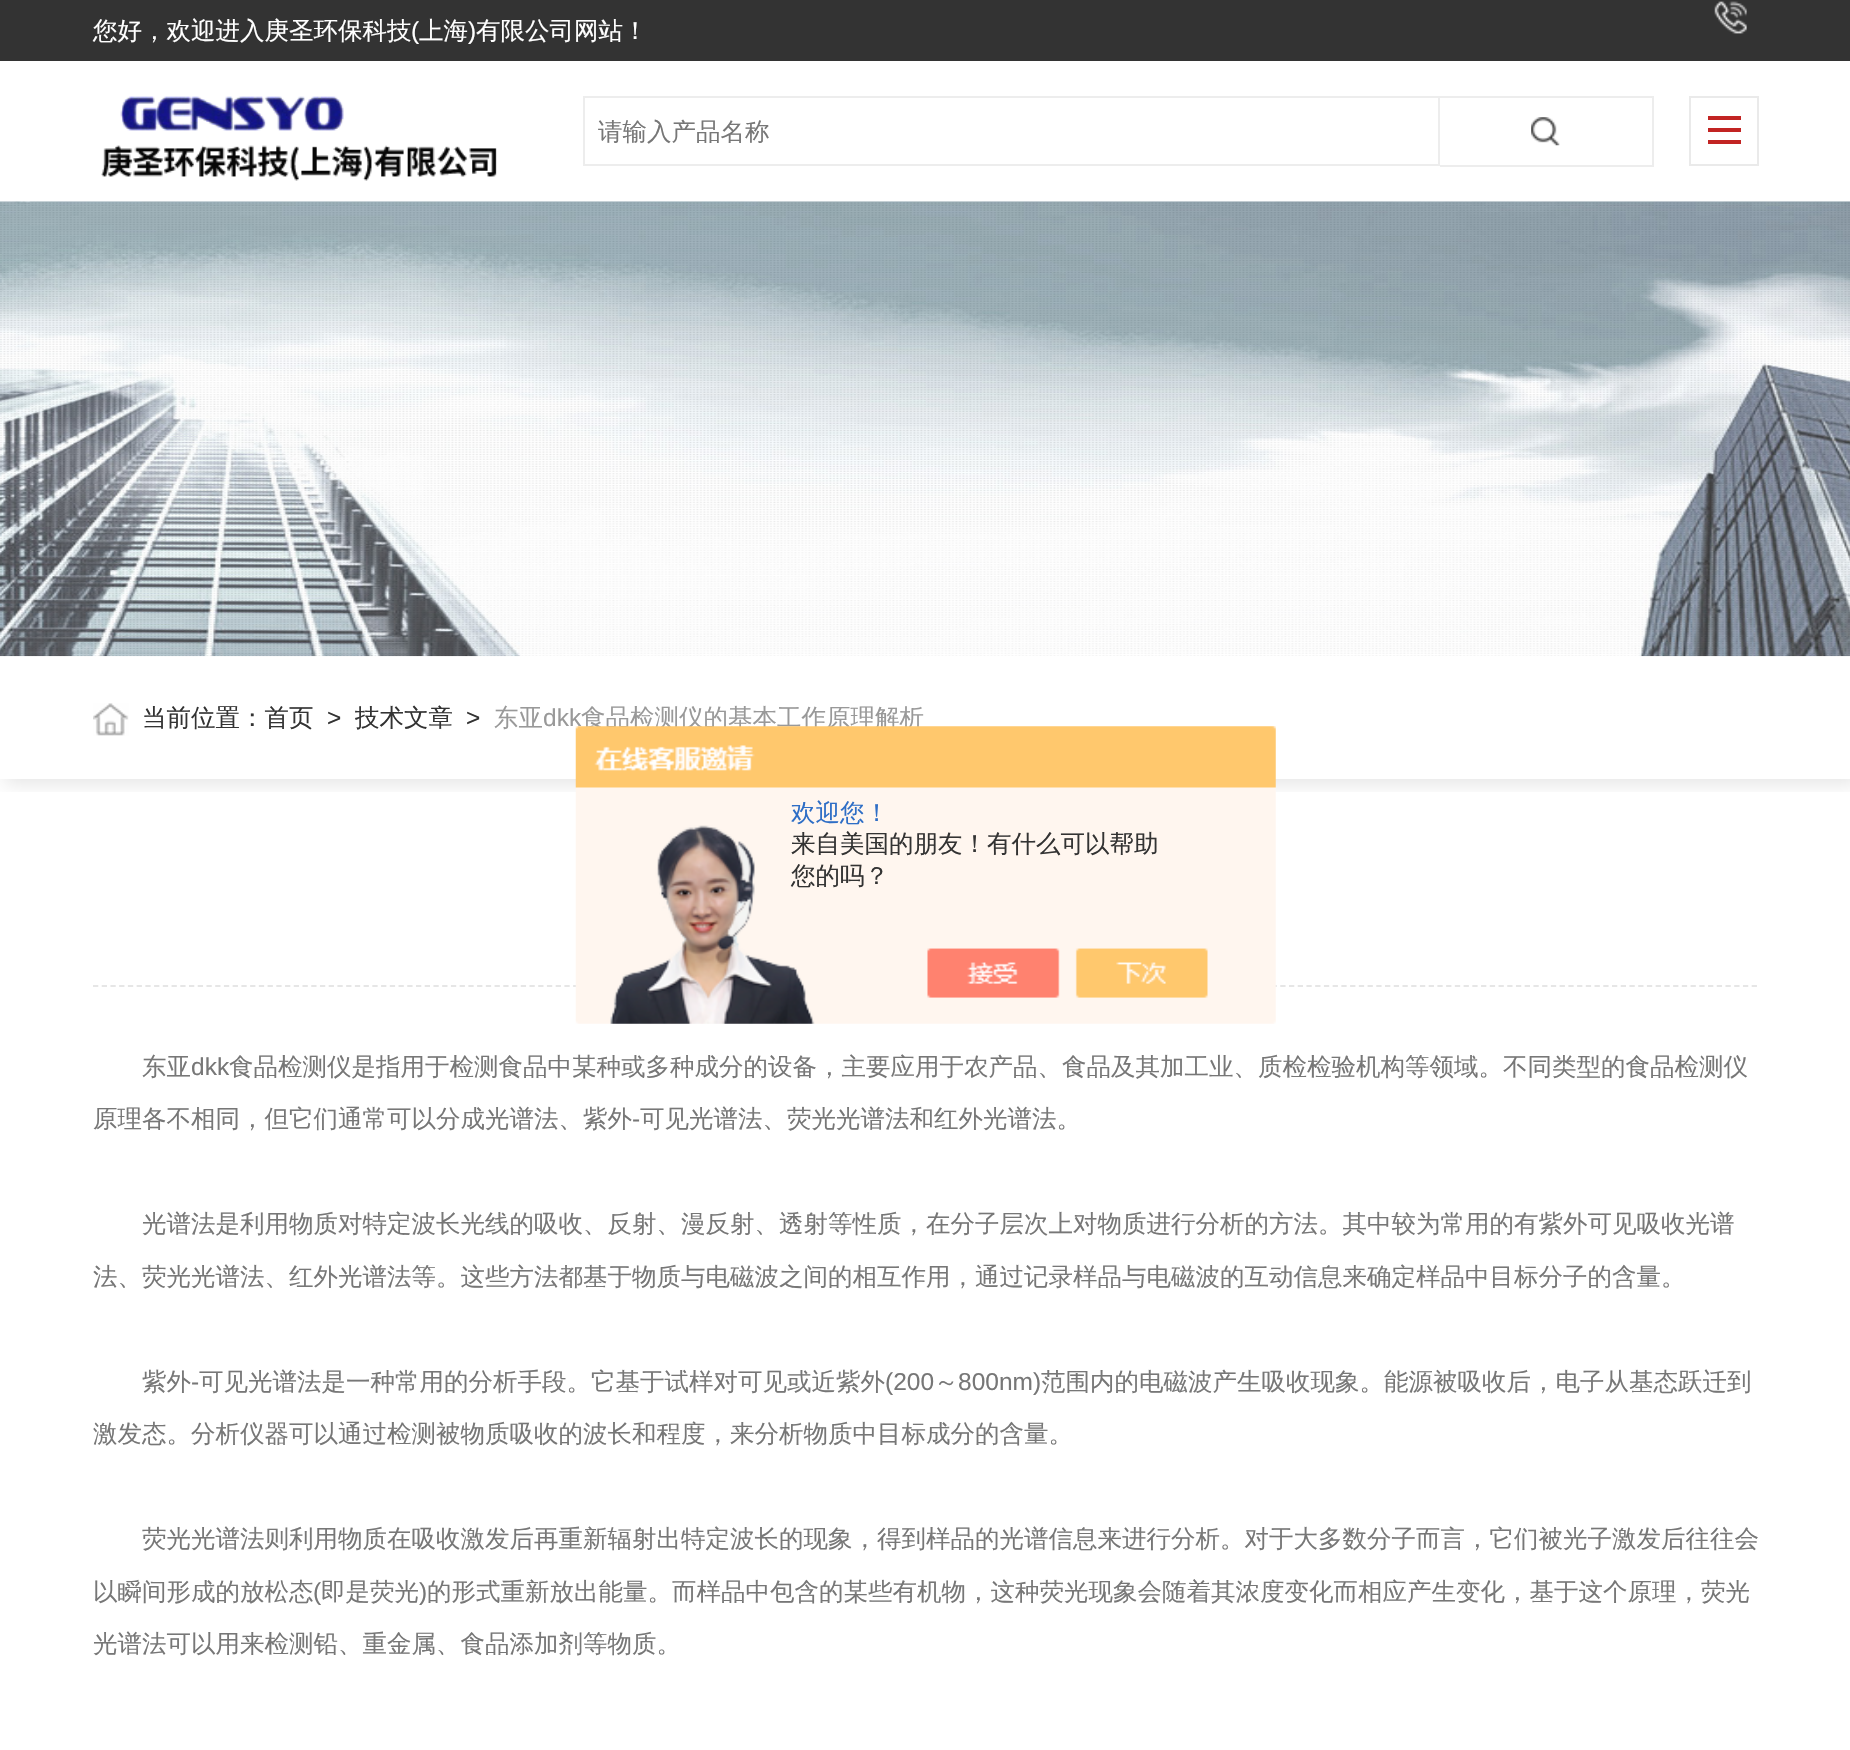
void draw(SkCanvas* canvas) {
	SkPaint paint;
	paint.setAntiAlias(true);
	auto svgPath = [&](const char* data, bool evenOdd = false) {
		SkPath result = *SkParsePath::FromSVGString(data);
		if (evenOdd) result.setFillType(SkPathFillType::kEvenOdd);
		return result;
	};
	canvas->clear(0xffffffff);
	paint.setColor(0xff333333);
	canvas->drawRect(SkRect::MakeXYWH(0, 0, 1850, 61), paint);
	SkFont f1(fontMgr->matchFamilyStyle("WenQuanYi Zen Hei", SkFontStyle(500, SkFontStyle::kNormal_Width, SkFontStyle::kUpright_Slant)), 24.5);
	f1.setSubpixel(true);
	paint.setColor(0xffffffff);
	canvas->drawString("您好，欢迎进入庚圣环保科技", 93, 39, f1, paint);
	SkFont f2(fontMgr->matchFamilyStyle("Liberation Sans", SkFontStyle::Normal()), 24.5);
	f2.setSubpixel(true);
	canvas->drawString("(", 411, 39, f2, paint);
	canvas->drawString("上海", 419, 39, f1, paint);
	canvas->drawString(")", 468, 39, f2, paint);
	canvas->drawString("有限公司网站！", 476, 39, f1, paint);
	canvas->drawImageRect(SkImages::DeferredFromEncodedData(SkData::MakeFromFileName("img1.png")), SkRect::MakeXYWH(1714, 1, 33, 33), SkSamplingOptions());
	canvas->drawImageRect(SkImages::DeferredFromEncodedData(SkData::MakeFromFileName("img2.png")), SkRect::MakeXYWH(101, 96, 396, 85), SkSamplingOptions());
	paint.setStroke(true);
	paint.setStrokeWidth(2);
	paint.setColor(0xffededed);
	canvas->drawRect(SkRect::MakeXYWH(584, 97, 855, 68), paint);
	paint.setStroke(false);
	paint.setColor(0xff777777);
	canvas->drawString("请输入产品名称", 598, 140, f1, paint);
	canvas->drawImageRect(SkImages::DeferredFromEncodedData(SkData::MakeFromFileName("img3.png")), SkRect::MakeXYWH(1531, 117, 29, 29), SkSamplingOptions());
	paint.setColor(0xffededed);
	canvas->drawRect(SkRect::MakeXYWH(1440, 96, 214, 2), paint);
	canvas->drawRect(SkRect::MakeXYWH(1652, 96, 2, 70), paint);
	canvas->drawRect(SkRect::MakeXYWH(1440, 165, 214, 2), paint);
	paint.setStroke(true);
	paint.setColor(0xffeaeaea);
	canvas->drawRect(SkRect::MakeXYWH(1690, 97, 68, 68), paint);
	paint.setStroke(false);
	paint.setColor(0xffc22423);
	canvas->drawRect(SkRect::MakeXYWH(1708, 116, 33, 4), paint);
	canvas->drawRect(SkRect::MakeXYWH(1708, 128, 33, 4), paint);
	canvas->drawRect(SkRect::MakeXYWH(1708, 140, 33, 4), paint);
	canvas->save();
	canvas->clipRect(SkRect::MakeXYWH(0, 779, 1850, 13));
	paint.setColor(0x1a000000);
	paint.setMaskFilter(SkMaskFilter::MakeBlur(kNormal_SkBlurStyle, 9));
	canvas->drawRect(SkRect::MakeXYWH(5, 662, 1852, 122), paint);
	paint.setMaskFilter(nullptr);
	canvas->restore();
	canvas->drawImageRect(SkImages::DeferredFromEncodedData(SkData::MakeFromFileName("img4.png")), SkRect::MakeXYWH(0, 201, 1850, 456), SkSamplingOptions());
	canvas->drawImageRect(SkImages::DeferredFromEncodedData(SkData::MakeFromFileName("img5.png")), SkRect::MakeXYWH(93, 703, 36, 33), SkSamplingOptions());
	paint.setColor(0xff333333);
	canvas->drawString("当前位置：首页", 142, 726, f1, paint);
	canvas->drawString(">", 327, 726, f2, paint);
	canvas->drawString("技术文章", 355, 726, f1, paint);
	canvas->drawString(">", 466, 726, f2, paint);
	paint.setColor(0xff999999);
	canvas->drawString("东亚", 494, 726, f1, paint);
	canvas->drawString("dkk", 543, 726, f2, paint);
	canvas->drawString("食品检测仪的基本工作原理解析", 581, 726, f1, paint);
	paint.setStroke(true);
	paint.setStrokeWidth(1.8);
	paint.setColor(0xffe6e6e6);
	paint.setPathEffect(SkDashPathEffect::Make({{5.25f, 3.48f}}, 0));
	canvas->drawPath(svgPath("M93 986H1759"), paint);
	paint.setPathEffect(nullptr);
	canvas->drawImageRect(SkImages::DeferredFromEncodedData(SkData::MakeFromFileName("img6.png")), SkRect::MakeXYWH(575, 726, 701, 298), SkSamplingOptions());
	paint.setStroke(false);
	paint.setColor(0xff2e6ec6);
	canvas->drawString("欢迎您！", 791, 821, f1, paint);
	paint.setColor(0xff333333);
	canvas->drawString("来自美国的朋友！有什么可以帮助", 791, 852, f1, paint);
	canvas->drawString("您的吗？", 791, 884, f1, paint);
	paint.setColor(0xff777777);
	canvas->drawString("东亚", 142, 1075, f1, paint);
	canvas->drawString("dkk", 191, 1075, f2, paint);
	canvas->drawString("食品检测仪是指用于检测食品中某种或多种成分的设备，主要应用于农产品、食品及其加工业、质检检验机构等领域。不同类型的食品检测仪", 229, 1075, f1, paint);
	canvas->drawString("原理各不相同，但它们通常可以分成光谱法、紫外", 93, 1127, f1, paint);
	canvas->drawString("-", 632, 1127, f2, paint);
	canvas->drawString("可见光谱法、荧光光谱法和红外光谱法。", 640, 1127, f1, paint);
	canvas->drawString("光谱法是利用物质对特定波长光线的吸收、反射、漫反射、透射等性质，在分子层次上对物质进行分析的方法。其中较为常用的有紫外可见吸收光谱", 142, 1232, f1, paint);
	canvas->drawString("法、荧光光谱法、红外光谱法等。这些方法都基于物质与电磁波之间的相互作用，通过记录样品与电磁波的互动信息来确定样品中目标分子的含量。", 93, 1285, f1, paint);
	canvas->drawString("紫外", 142, 1390, f1, paint);
	canvas->drawString("-", 191, 1390, f2, paint);
	canvas->drawString("可见光谱法是一种常用的分析手段。它基于试样对可见或近紫外", 199, 1390, f1, paint);
	canvas->drawString("(200", 885, 1390, f2, paint);
	canvas->drawString("～", 934, 1390, f1, paint);
	canvas->drawString("800nm)", 958, 1390, f2, paint);
	canvas->drawString("范围内的电磁波产生吸收现象。能源被吸收后，电子从基态跃迁到", 1041, 1390, f1, paint);
	canvas->drawString("激发态。分析仪器可以通过检测被物质吸收的波长和程度，来分析物质中目标成分的含量。", 93, 1442, f1, paint);
	canvas->drawString("荧光光谱法则利用物质在吸收激发后再重新辐射出特定波长的现象，得到样品的光谱信息来进行分析。对于大多数分子而言，它们被光子激发后往往会", 142, 1547, f1, paint);
	canvas->drawString("以瞬间形成的放松态", 93, 1600, f1, paint);
	canvas->drawString("(", 313, 1600, f2, paint);
	canvas->drawString("即是荧光", 321, 1600, f1, paint);
	canvas->drawString(")", 419, 1600, f2, paint);
	canvas->drawString("的形式重新放出能量。而样品中包含的某些有机物，这种荧光现象会随着其浓度变化而相应产生变化，基于这个原理，荧光", 427, 1600, f1, paint);
	canvas->drawString("光谱法可以用来检测铅、重金属、食品添加剂等物质。", 93, 1652, f1, paint);
}
